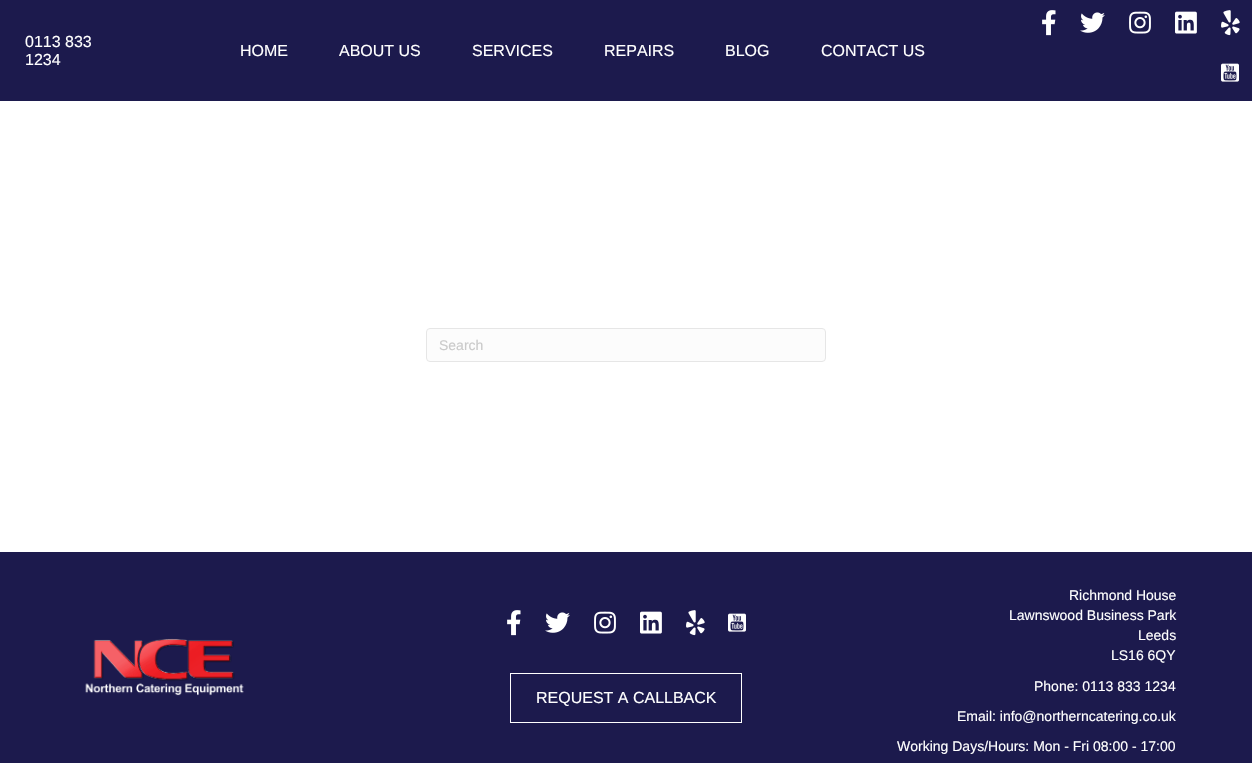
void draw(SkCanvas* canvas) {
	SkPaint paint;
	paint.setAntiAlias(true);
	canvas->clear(0xffffffff);
	paint.setColor(0xff1c1a4d);
	canvas->drawRect(SkRect::MakeXYWH(0, 0, 1252, 101), paint);
	SkFont f1(fontMgr->matchFamilyStyle("Liberation Sans", SkFontStyle::Normal()), 16);
	f1.setSubpixel(true);
	paint.setColor(0xffffffff);
	canvas->drawString("0113 833", 25, 47, f1, paint);
	canvas->drawString("1234", 25, 65, f1, paint);
	canvas->drawString("HOME", 240, 56, f1, paint);
	canvas->drawString("ABOUT US", 339, 56, f1, paint);
	canvas->drawString("SERVICES", 472, 56, f1, paint);
	canvas->drawString("REPAIRS", 604, 56, f1, paint);
	canvas->drawString("BLOG", 725, 56, f1, paint);
	canvas->drawString("CONTACT US", 821, 56, f1, paint);
	canvas->drawImageRect(SkImages::DeferredFromEncodedData(SkData::MakeFromFileName("img1.png")), SkRect::MakeXYWH(1042, 10, 14, 26), SkSamplingOptions());
	canvas->drawImageRect(SkImages::DeferredFromEncodedData(SkData::MakeFromFileName("img2.png")), SkRect::MakeXYWH(1080, 12, 25, 21), SkSamplingOptions());
	canvas->drawImageRect(SkImages::DeferredFromEncodedData(SkData::MakeFromFileName("img3.png")), SkRect::MakeXYWH(1129, 11, 22, 23), SkSamplingOptions());
	canvas->drawImageRect(SkImages::DeferredFromEncodedData(SkData::MakeFromFileName("img4.png")), SkRect::MakeXYWH(1175, 11, 22, 23), SkSamplingOptions());
	canvas->drawImageRect(SkImages::DeferredFromEncodedData(SkData::MakeFromFileName("img5.png")), SkRect::MakeXYWH(1221, 10, 19, 26), SkSamplingOptions());
	canvas->drawImageRect(SkImages::DeferredFromEncodedData(SkData::MakeFromFileName("img6.png")), SkRect::MakeXYWH(1221, 63, 18, 19), SkSamplingOptions());
	paint.setColor(0xfffcfcfc);
	canvas->drawRoundRect(SkRect::MakeXYWH(426.5, 328.5, 399, 33), 3.5, 3.5, paint);
	paint.setStroke(true);
	paint.setStrokeWidth(1);
	paint.setColor(0xffe6e6e6);
	canvas->drawRoundRect(SkRect::MakeXYWH(426.5, 328.5, 399, 33), 3.5, 3.5, paint);
	SkFont f2(fontMgr->matchFamilyStyle("Liberation Sans", SkFontStyle::Normal()), 14);
	f2.setSubpixel(true);
	paint.setStroke(false);
	paint.setColor(0xffcacaca);
	canvas->drawString("Search", 439, 350, f2, paint);
	paint.setColor(0xff1c1a4d);
	canvas->drawRect(SkRect::MakeXYWH(0, 552, 1252, 211), paint);
	canvas->drawImageRect(SkImages::DeferredFromEncodedData(SkData::MakeFromFileName("img7.png")), SkRect::MakeXYWH(85, 638, 159, 58), SkSamplingOptions());
	paint.setColor(0xffffffff);
	canvas->drawString("Richmond House", 1069, 600, f2, paint);
	canvas->drawString("Lawnswood Business Park", 1009, 620, f2, paint);
	canvas->drawString("Leeds", 1138, 640, f2, paint);
	canvas->drawString("LS16 6QY", 1111, 660, f2, paint);
	canvas->drawString("Phone: 0113 833 1234", 1034, 691, f2, paint);
	canvas->drawString("Email: info@northerncatering.co.uk", 957, 721, f2, paint);
	canvas->drawString("Working Days/Hours: Mon - Fri 08:00 - 17:00", 897, 751, f2, paint);
	canvas->drawImageRect(SkImages::DeferredFromEncodedData(SkData::MakeFromFileName("img1.png")), SkRect::MakeXYWH(507, 610, 14, 26), SkSamplingOptions());
	canvas->drawImageRect(SkImages::DeferredFromEncodedData(SkData::MakeFromFileName("img2.png")), SkRect::MakeXYWH(545, 612, 25, 21), SkSamplingOptions());
	canvas->drawImageRect(SkImages::DeferredFromEncodedData(SkData::MakeFromFileName("img3.png")), SkRect::MakeXYWH(594, 611, 22, 23), SkSamplingOptions());
	canvas->drawImageRect(SkImages::DeferredFromEncodedData(SkData::MakeFromFileName("img4.png")), SkRect::MakeXYWH(640, 611, 22, 23), SkSamplingOptions());
	canvas->drawImageRect(SkImages::DeferredFromEncodedData(SkData::MakeFromFileName("img5.png")), SkRect::MakeXYWH(686, 610, 19, 26), SkSamplingOptions());
	canvas->drawImageRect(SkImages::DeferredFromEncodedData(SkData::MakeFromFileName("img6.png")), SkRect::MakeXYWH(728, 613, 18, 19), SkSamplingOptions());
	paint.setStroke(true);
	canvas->drawRect(SkRect::MakeXYWH(510.5, 673.5, 231, 49), paint);
	paint.setStroke(false);
	canvas->drawString("REQUEST A CALLBACK", 536, 703, f1, paint);
}
